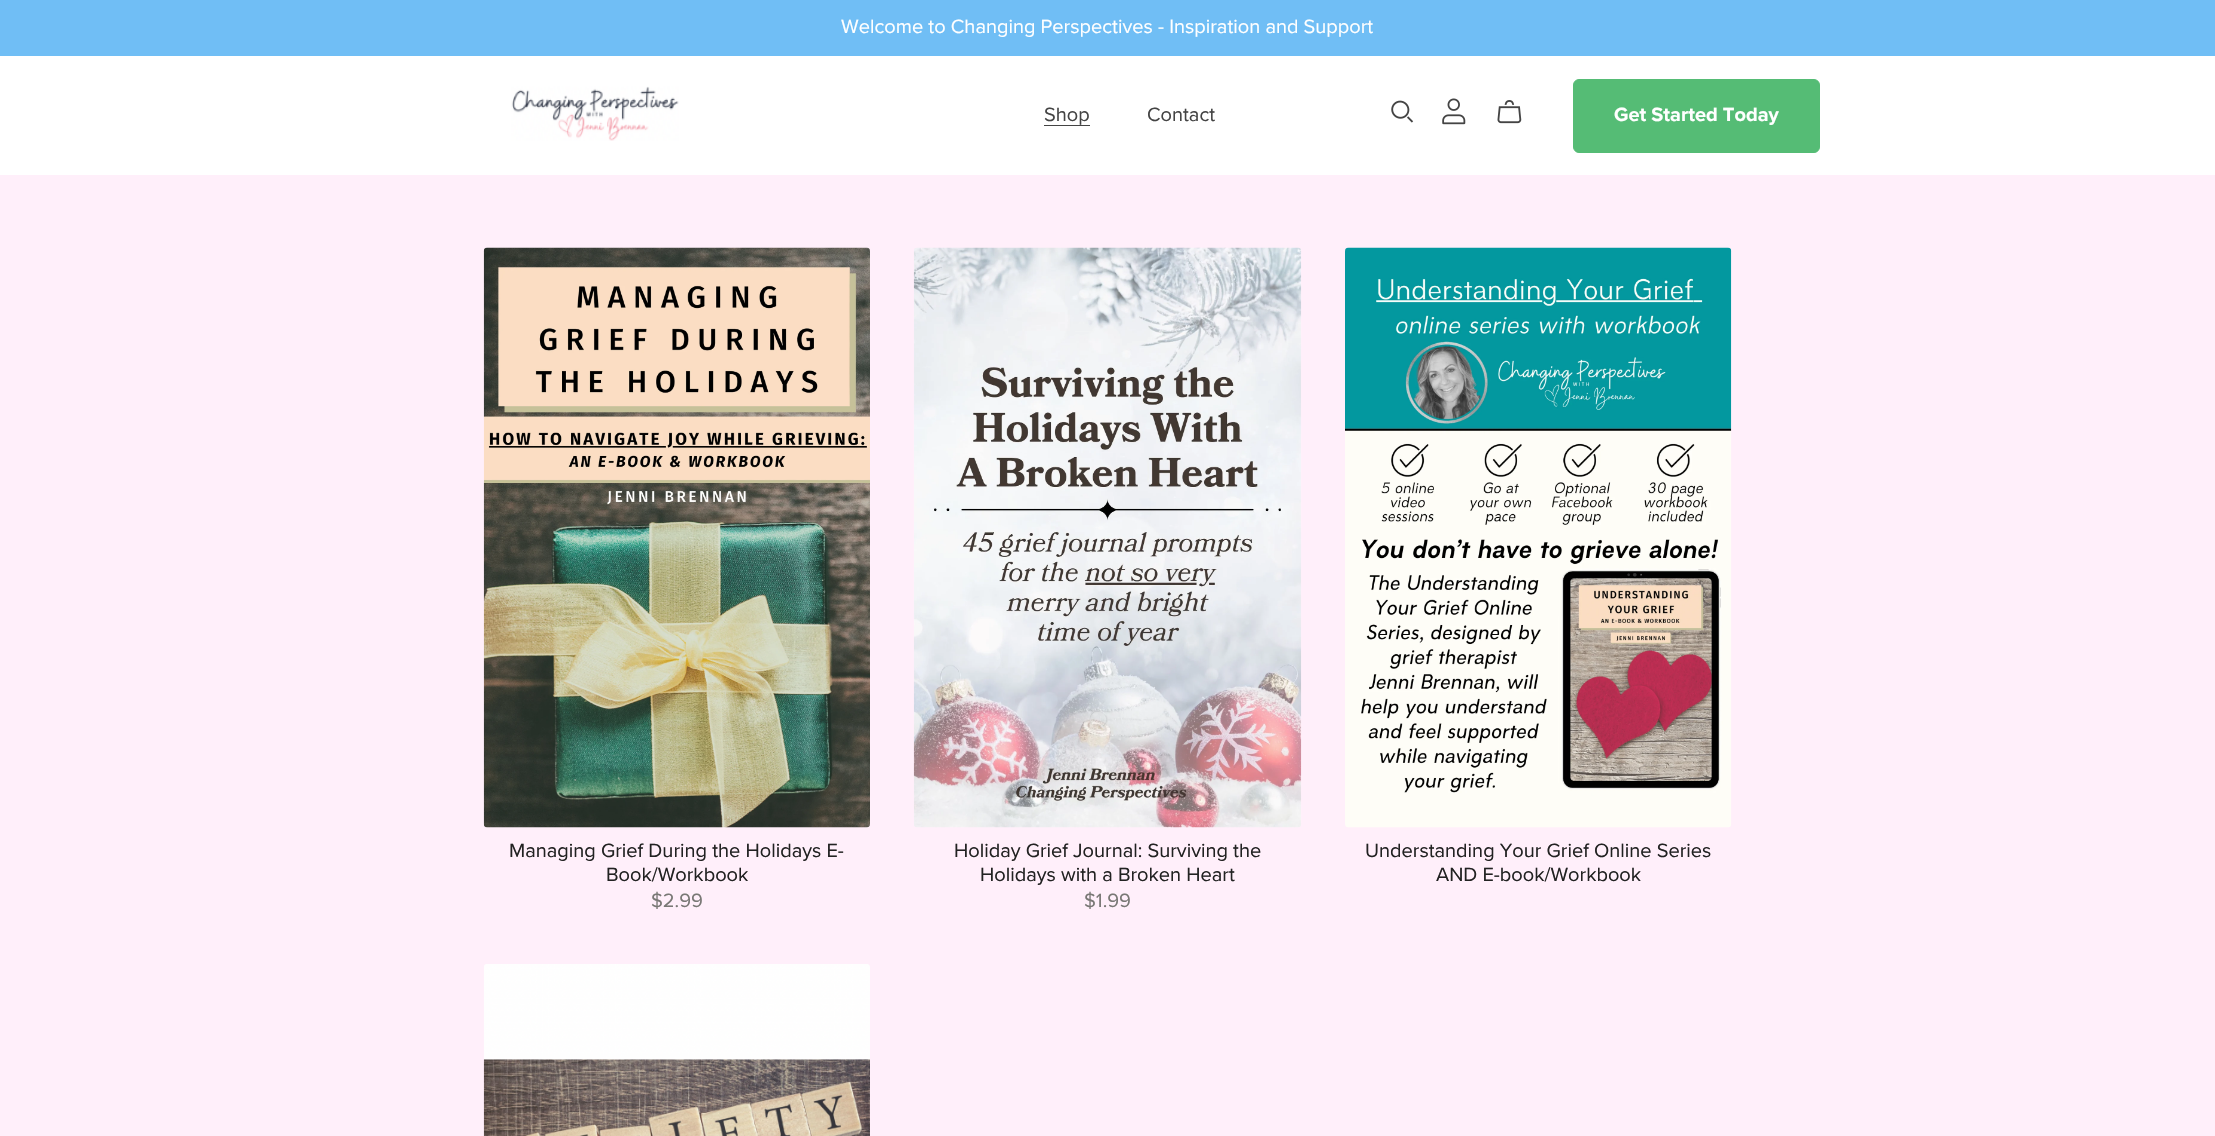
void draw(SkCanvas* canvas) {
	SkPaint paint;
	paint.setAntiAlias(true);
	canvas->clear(0xffffeffa);
	paint.setColor(0xffffffff);
	canvas->drawRect(SkRect::MakeXYWH(0, 56, 2215, 119), paint);
	paint.setColor(0xff70bef5);
	canvas->drawRect(SkRect::MakeXYWH(0, 0, 2215, 56), paint);
	SkFont f1(fontMgr->matchFamilyStyle("Proxima Nova", SkFontStyle::Normal()), 20);
	f1.setSubpixel(true);
	paint.setColor(0xffffffff);
	canvas->drawString("Welcome to Changing Perspectives - Inspiration and Support", 841, 33, f1, paint);
	canvas->drawImageRect(SkImages::DeferredFromEncodedData(SkData::MakeFromFileName("img1.png")), SkRect::MakeXYWH(511, 86, 168, 55), SkSamplingOptions());
	paint.setColor(0xff444444);
	canvas->drawString("Shop", 1044, 121, f1, paint);
	canvas->drawRect(SkRect::MakeXYWH(1044, 125, 46, 1), paint);
	canvas->drawString("Contact", 1147, 121, f1, paint);
	canvas->drawImageRect(SkImages::DeferredFromEncodedData(SkData::MakeFromFileName("img2.png")), SkRect::MakeXYWH(1391, 100, 23, 23), SkSamplingOptions());
	canvas->drawImageRect(SkImages::DeferredFromEncodedData(SkData::MakeFromFileName("img3.png")), SkRect::MakeXYWH(1442, 98, 24, 27), SkSamplingOptions());
	canvas->drawImageRect(SkImages::DeferredFromEncodedData(SkData::MakeFromFileName("img4.png")), SkRect::MakeXYWH(1497, 100, 25, 24), SkSamplingOptions());
	paint.setColor(0xff55bc75);
	canvas->drawRoundRect(SkRect::MakeXYWH(1573.5, 79.5, 246, 73), 5.5, 5.5, paint);
	paint.setStroke(true);
	paint.setStrokeWidth(1);
	canvas->drawRoundRect(SkRect::MakeXYWH(1573.5, 79.5, 246, 73), 5.5, 5.5, paint);
	SkFont f2(fontMgr->matchFamilyStyle("Proxima Nova", SkFontStyle::Bold()), 20);
	f2.setSubpixel(true);
	paint.setStroke(false);
	paint.setColor(0xffffffff);
	canvas->drawString("Get Started Today", 1614, 121, f2, paint);
	canvas->drawImageRect(SkImages::DeferredFromEncodedData(SkData::MakeFromFileName("img5.png")), SkRect::MakeXYWH(483, 247, 387, 581), SkSamplingOptions());
	paint.setColor(0xff222222);
	canvas->drawString("Managing Grief During the Holidays E-", 509, 857, f1, paint);
	canvas->drawString("Book/Workbook", 606, 881, f1, paint);
	paint.setColor(0xff797875);
	canvas->drawString("$2.99", 651, 907, f1, paint);
	canvas->drawImageRect(SkImages::DeferredFromEncodedData(SkData::MakeFromFileName("img6.png")), SkRect::MakeXYWH(913, 247, 389, 581), SkSamplingOptions());
	paint.setColor(0xff222222);
	canvas->drawString("Holiday Grief Journal: Surviving the", 954, 857, f1, paint);
	canvas->drawString("Holidays with a Broken Heart", 980, 881, f1, paint);
	paint.setColor(0xff797875);
	canvas->drawString("$1.99", 1084, 907, f1, paint);
	canvas->drawImageRect(SkImages::DeferredFromEncodedData(SkData::MakeFromFileName("img7.png")), SkRect::MakeXYWH(1345, 247, 387, 581), SkSamplingOptions());
	paint.setColor(0xff222222);
	canvas->drawString("Understanding Your Grief Online Series", 1365, 857, f1, paint);
	canvas->drawString("AND E-book/Workbook", 1436, 881, f1, paint);
	canvas->drawImageRect(SkImages::DeferredFromEncodedData(SkData::MakeFromFileName("img8.png")), SkRect::MakeXYWH(483, 964, 387, 172), SkSamplingOptions());
}
